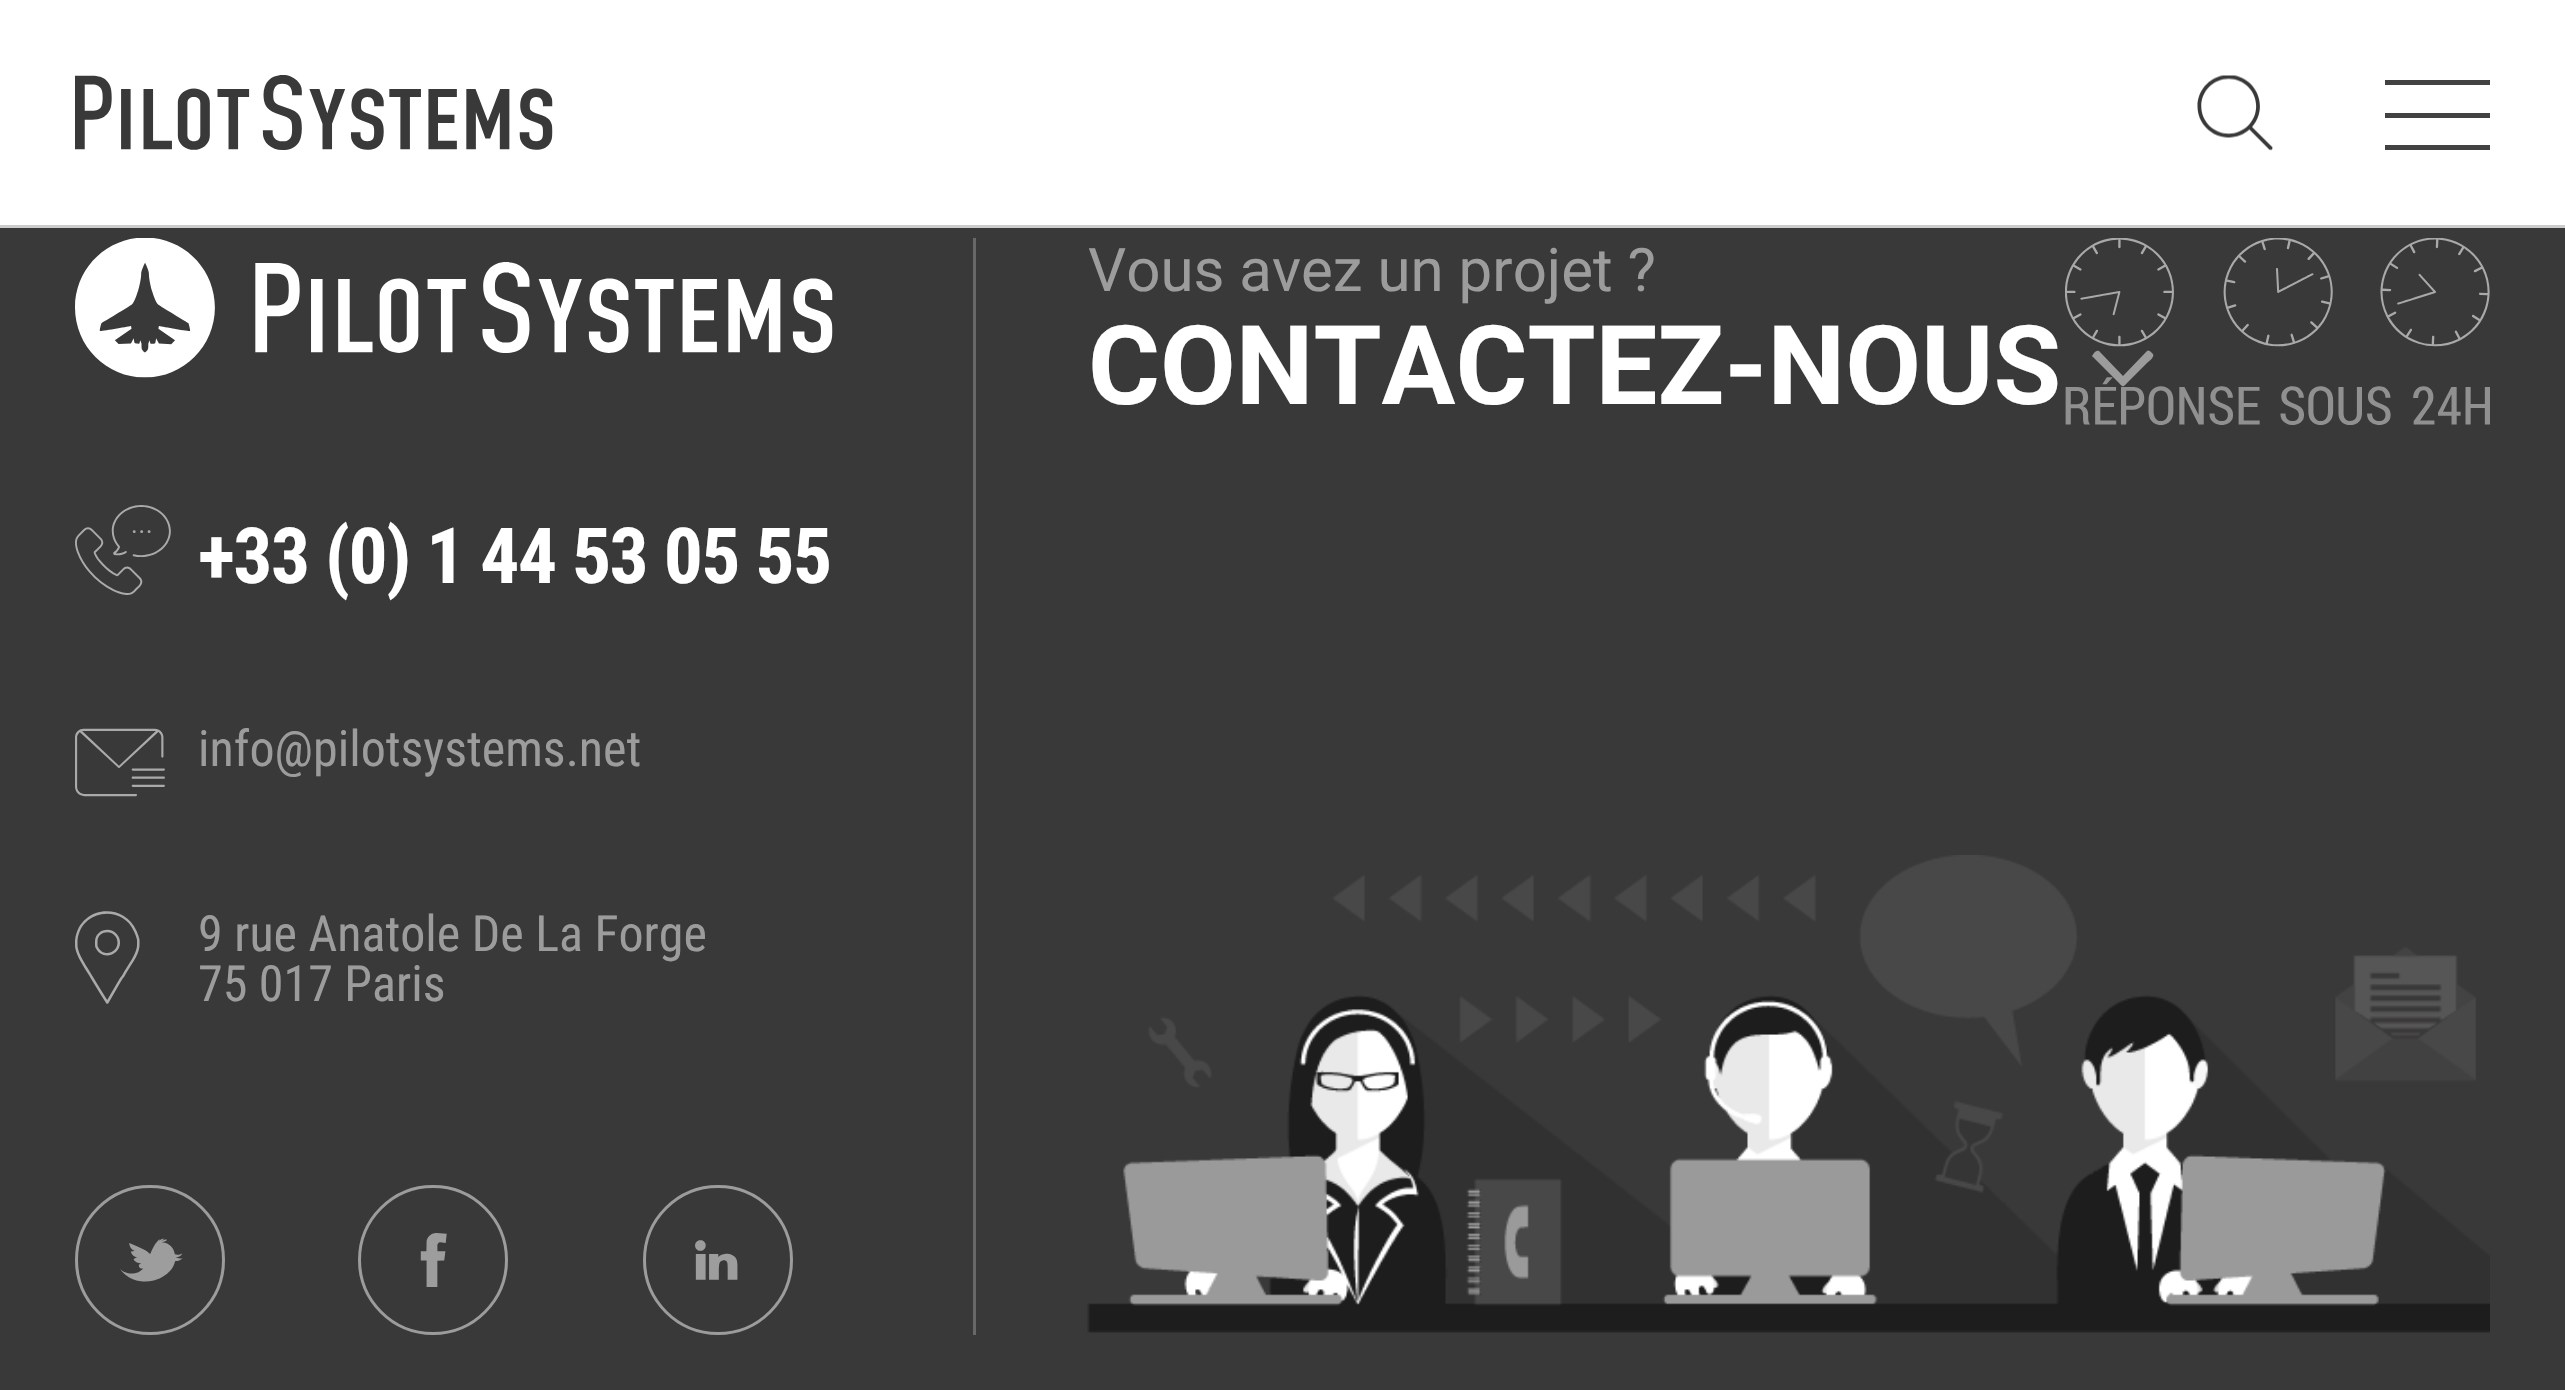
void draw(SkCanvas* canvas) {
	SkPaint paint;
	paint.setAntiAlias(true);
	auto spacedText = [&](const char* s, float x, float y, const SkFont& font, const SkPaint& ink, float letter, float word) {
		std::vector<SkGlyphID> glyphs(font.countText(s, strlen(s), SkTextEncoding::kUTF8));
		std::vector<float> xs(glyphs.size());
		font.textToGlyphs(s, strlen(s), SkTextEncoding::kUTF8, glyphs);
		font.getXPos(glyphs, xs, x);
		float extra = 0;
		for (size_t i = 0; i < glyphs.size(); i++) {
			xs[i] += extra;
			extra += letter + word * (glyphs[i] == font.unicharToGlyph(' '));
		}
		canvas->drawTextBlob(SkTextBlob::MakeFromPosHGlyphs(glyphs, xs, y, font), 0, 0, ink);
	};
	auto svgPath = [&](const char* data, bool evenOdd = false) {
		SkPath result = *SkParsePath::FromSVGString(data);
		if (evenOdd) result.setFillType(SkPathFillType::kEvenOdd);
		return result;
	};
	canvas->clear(0xff3a3939);
	paint.setColor(0xffffffff);
	canvas->drawRect(SkRect::MakeXYWH(0, 0, 2565, 225), paint);
	paint.setColor(0xffcccccc);
	canvas->drawRect(SkRect::MakeXYWH(0, 225, 2565, 3), paint);
	canvas->drawImageRect(SkImages::DeferredFromEncodedData(SkData::MakeFromFileName("img1.png")), SkRect::MakeXYWH(75, 75, 478, 75), SkSamplingOptions());
	canvas->drawImageRect(SkImages::DeferredFromEncodedData(SkData::MakeFromFileName("img2.png")), SkRect::MakeXYWH(2197, 75, 76, 76), SkSamplingOptions());
	paint.setColor(0xff424242);
	canvas->drawRect(SkRect::MakeXYWH(2385, 80, 105, 5), paint);
	canvas->drawRect(SkRect::MakeXYWH(2385, 113, 105, 5), paint);
	canvas->drawRect(SkRect::MakeXYWH(2385, 145, 105, 5), paint);
	canvas->drawImageRect(SkImages::DeferredFromEncodedData(SkData::MakeFromFileName("img3.png")), SkRect::MakeXYWH(1087, 855, 1403, 478), SkSamplingOptions());
	canvas->drawImageRect(SkImages::DeferredFromEncodedData(SkData::MakeFromFileName("img4.png")), SkRect::MakeXYWH(2065, 238, 425, 187), SkSamplingOptions());
	SkFont f1(fontMgr->matchFamilyStyle("Roboto", SkFontStyle::Normal()), 60);
	f1.setSubpixel(true);
	paint.setColor(0xff9c9c9c);
	canvas->drawString("Vous avez un projet ?", 1088, 291, f1, paint);
	SkFont f2(fontMgr->matchFamilyStyle("Roboto", SkFontStyle::Bold()), 110);
	f2.setSubpixel(true);
	paint.setColor(0xffffffff);
	canvas->drawString("CONTACTEZ-NOUS", 1088, 404, f2, paint);
	paint.setColor(0xff9c9c9c);
	canvas->drawPath(svgPath("M2153 354C2155 357 2148 362 2148 362L2129 381C2122 388 2124 388 2117 381L2093 357C2091 356 2093 355 2094 353C2095 352 2097 350 2099 351L2123 376L2147 351C2149 349 2152 353 2153 354Z"), paint);
	paint.setColor(0xff686868);
	canvas->drawRect(SkRect::MakeXYWH(973, 238, 3, 1097), paint);
	canvas->drawImageRect(SkImages::DeferredFromEncodedData(SkData::MakeFromFileName("img5.png")), SkRect::MakeXYWH(75, 238, 758, 140), SkSamplingOptions());
	canvas->drawImageRect(SkImages::DeferredFromEncodedData(SkData::MakeFromFileName("img6.png")), SkRect::MakeXYWH(75, 505, 96, 90), SkSamplingOptions());
	SkFont f3(fontMgr->matchFamilyStyle("Roboto Condensed", SkFontStyle::Bold()), 77.5);
	f3.setSubpixel(true);
	paint.setColor(0xffffffff);
	spacedText("+33 (0) 1 44 53 05 55", 198, 583, f3, paint, -1.5, 0);
	canvas->drawImageRect(SkImages::DeferredFromEncodedData(SkData::MakeFromFileName("img7.png")), SkRect::MakeXYWH(75, 728, 90, 69), SkSamplingOptions());
	SkFont f4(fontMgr->matchFamilyStyle("Roboto Condensed", SkFontStyle::Normal()), 50);
	f4.setSubpixel(true);
	paint.setColor(0xff9c9c9c);
	canvas->drawString("info@pilotsystems.net", 198, 766, f4, paint);
	canvas->drawImageRect(SkImages::DeferredFromEncodedData(SkData::MakeFromFileName("img8.png")), SkRect::MakeXYWH(75, 911, 65, 93), SkSamplingOptions());
	canvas->drawString("9 rue Anatole De La Forge", 198, 951, f4, paint);
	canvas->drawString("75 017 Paris", 198, 1001, f4, paint);
	paint.setStroke(true);
	paint.setStrokeWidth(3);
	paint.setColor(0xff9d9c9c);
	canvas->drawCircle(150, 1260, 73.5, paint);
	canvas->drawImageRect(SkImages::DeferredFromEncodedData(SkData::MakeFromFileName("img9.png")), SkRect::MakeXYWH(120, 1238, 63, 44), SkSamplingOptions());
	canvas->drawCircle(433, 1260, 73.5, paint);
	canvas->drawImageRect(SkImages::DeferredFromEncodedData(SkData::MakeFromFileName("img10.png")), SkRect::MakeXYWH(420, 1233, 27, 54), SkSamplingOptions());
	canvas->drawCircle(718, 1260, 73.5, paint);
	canvas->drawImageRect(SkImages::DeferredFromEncodedData(SkData::MakeFromFileName("img11.png")), SkRect::MakeXYWH(695, 1240, 43, 40), SkSamplingOptions());
}
